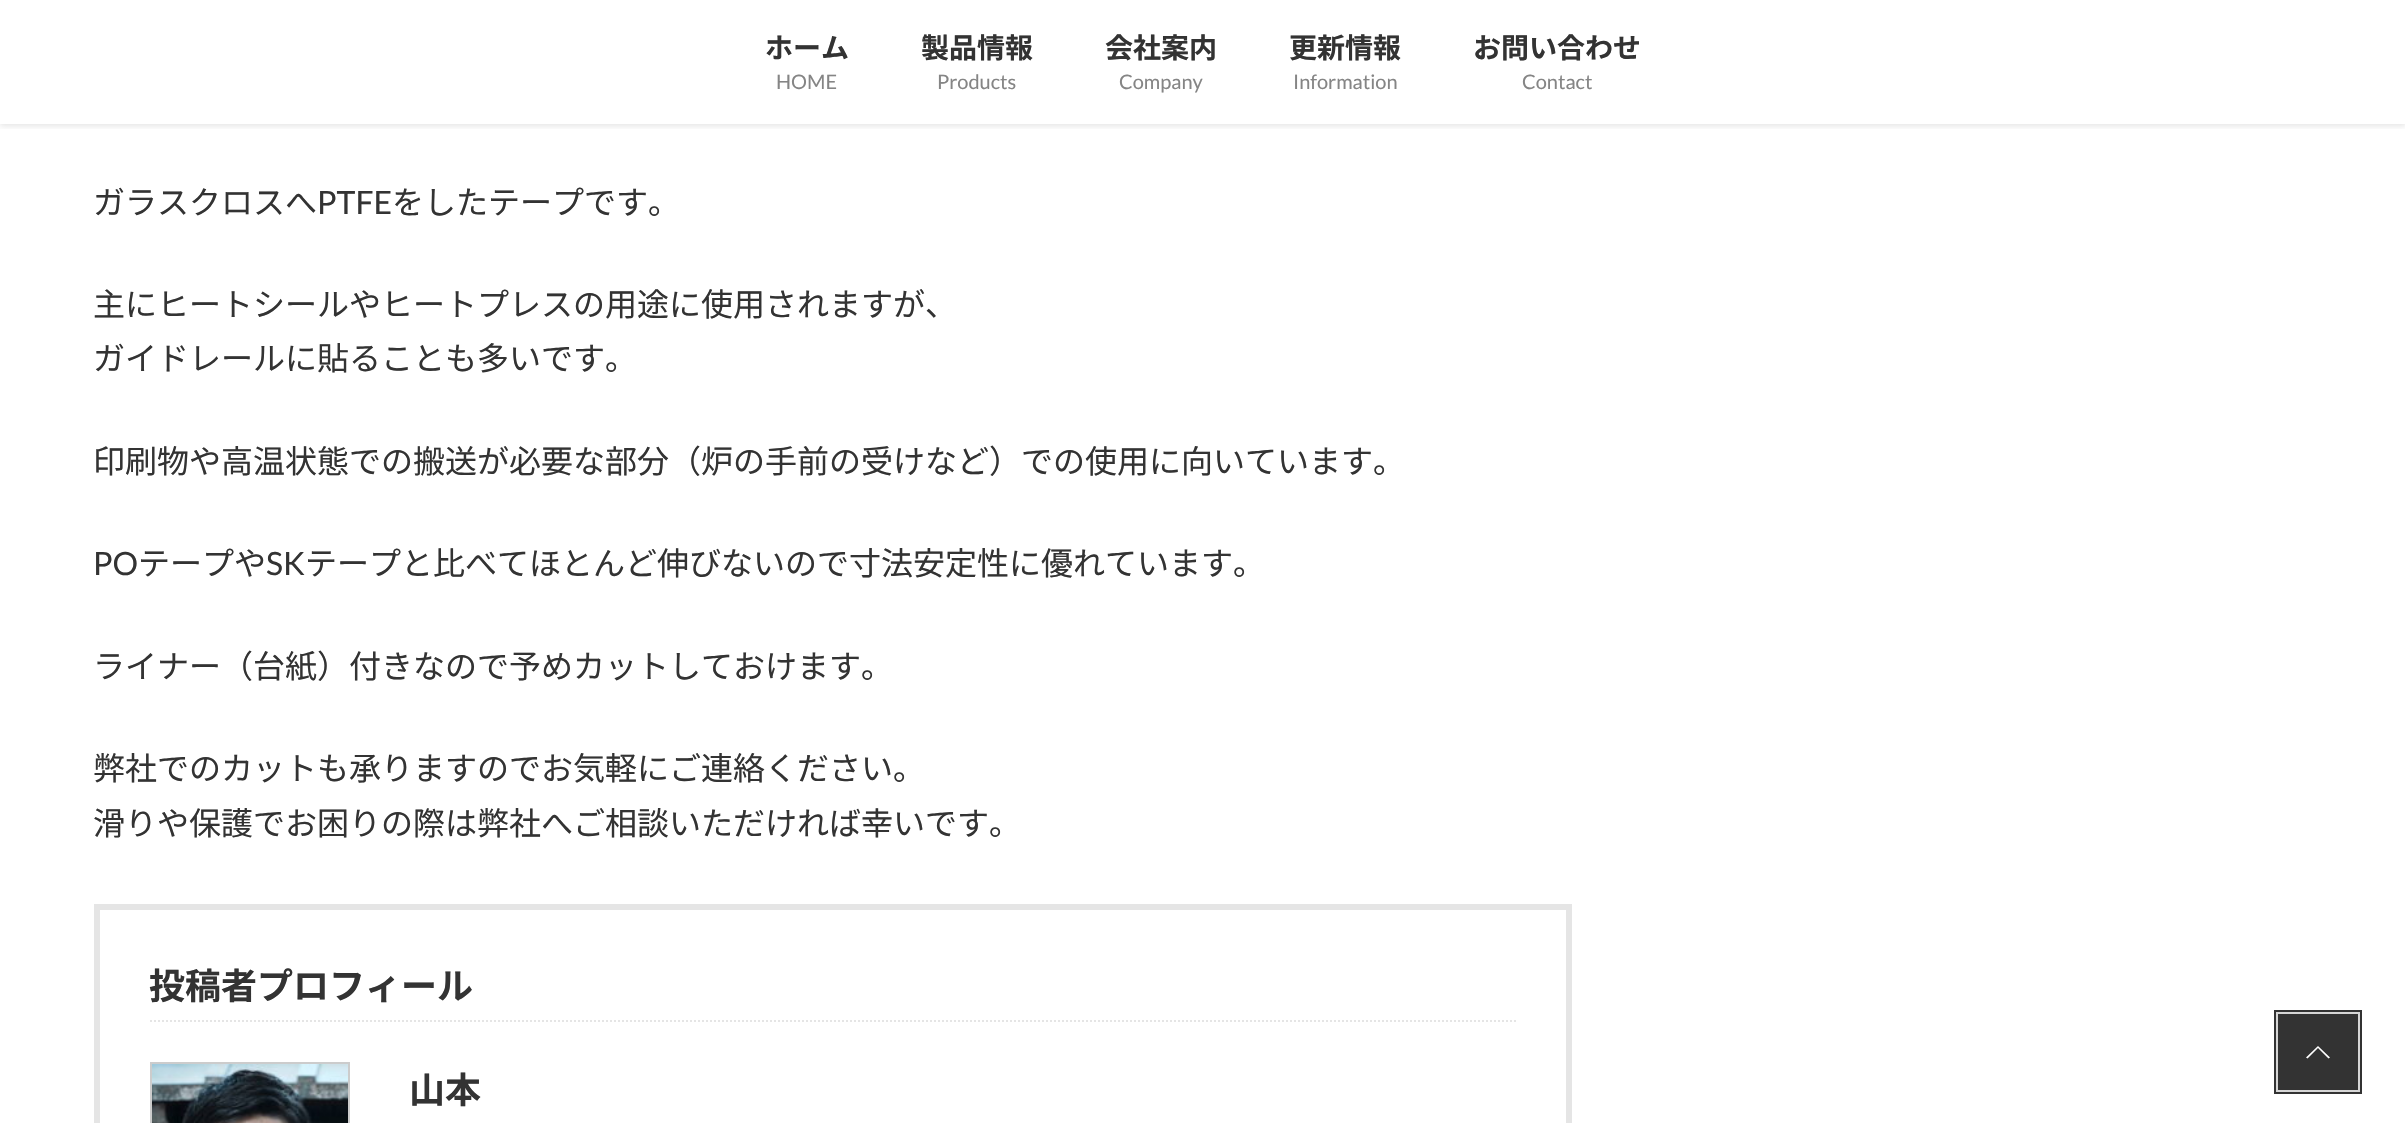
void draw(SkCanvas* canvas) {
	SkPaint paint;
	paint.setAntiAlias(true);
	auto svgPath = [&](const char* data, bool evenOdd = false) {
		SkPath result = *SkParsePath::FromSVGString(data);
		if (evenOdd) result.setFillType(SkPathFillType::kEvenOdd);
		return result;
	};
	canvas->clear(0xffffffff);
	canvas->save();
	canvas->clipRect(SkRect::MakeXYWH(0, 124, 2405, 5));
	paint.setColor(0x1a000000);
	paint.setMaskFilter(SkMaskFilter::MakeBlur(kNormal_SkBlurStyle, 3));
	canvas->drawRect(SkRect::MakeXYWH(0, 2, 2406, 124), paint);
	paint.setMaskFilter(nullptr);
	canvas->restore();
	SkFont f1(fontMgr->matchFamilyStyle("Noto Sans JP", SkFontStyle::Bold()), 28);
	f1.setSubpixel(true);
	paint.setColor(0xff333333);
	canvas->drawString("ホーム", 765, 58, f1, paint);
	SkFont f2(fontMgr->matchFamilyStyle("Lato", SkFontStyle::Normal()), 20);
	f2.setSubpixel(true);
	paint.setColor(0xff858585);
	canvas->drawString("HOME", 776, 89, f2, paint);
	paint.setColor(0xff333333);
	canvas->drawString("製品情報", 921, 58, f1, paint);
	paint.setColor(0xff858585);
	canvas->drawString("Products", 937, 89, f2, paint);
	paint.setColor(0xff333333);
	canvas->drawString("会社案内", 1105, 58, f1, paint);
	paint.setColor(0xff858585);
	canvas->drawString("Company", 1119, 89, f2, paint);
	paint.setColor(0xff333333);
	canvas->drawString("更新情報", 1289, 58, f1, paint);
	paint.setColor(0xff858585);
	canvas->drawString("Information", 1293, 89, f2, paint);
	paint.setColor(0xff333333);
	canvas->drawString("お問い合わせ", 1473, 58, f1, paint);
	paint.setColor(0xff858585);
	canvas->drawString("Contact", 1522, 89, f2, paint);
	SkFont f3(fontMgr->matchFamilyStyle("Noto Sans JP", SkFontStyle::Normal()), 32);
	f3.setSubpixel(true);
	paint.setColor(0xff333333);
	canvas->drawString("ガラスクロスへ", 93, 214, f3, paint);
	SkFont f4(fontMgr->matchFamilyStyle("Lato", SkFontStyle::Normal()), 32);
	f4.setSubpixel(true);
	canvas->drawString("PTFE", 317, 214, f4, paint);
	canvas->drawString("をしたテープです。", 392, 214, f3, paint);
	canvas->drawString("主にヒートシールやヒートプレスの用途に使用されますが、", 93, 316, f3, paint);
	canvas->drawString("ガイドレールに貼ることも多いです。", 93, 370, f3, paint);
	canvas->drawString("印刷物や高温状態での搬送が必要な部分（炉の手前の受けなど）での使用に向いています。", 93, 473, f3, paint);
	canvas->drawString("PO", 93, 575, f4, paint);
	canvas->drawString("テープや", 138, 575, f3, paint);
	canvas->drawString("SK", 266, 575, f4, paint);
	canvas->drawString("テープと比べてほとんど伸びないので寸法安定性に優れています。", 305, 575, f3, paint);
	canvas->drawString("ライナー（台紙）付きなので予めカットしておけます。", 93, 678, f3, paint);
	canvas->drawString("弊社でのカットも承りますのでお気軽にご連絡ください。", 93, 780, f3, paint);
	canvas->drawString("滑りや保護でお困りの際は弊社へご相談いただければ幸いです。", 93, 835, f3, paint);
	paint.setStroke(true);
	paint.setStrokeWidth(6);
	paint.setColor(0xffe5e5e5);
	canvas->drawRect(SkRect::MakeXYWH(97, 907, 1472, 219), paint);
	paint.setStrokeWidth(2);
	paint.setPathEffect(SkDashPathEffect::Make({{2, 2}}, 0));
	canvas->drawPath(svgPath("M150 1021H1516"), paint);
	paint.setPathEffect(nullptr);
	SkFont f5(fontMgr->matchFamilyStyle("Noto Sans JP", SkFontStyle::Bold()), 36);
	f5.setSubpixel(true);
	paint.setStroke(false);
	paint.setColor(0xff333333);
	canvas->drawString("投稿者プロフィール", 149, 999, f5, paint);
	paint.setStroke(true);
	paint.setColor(0xffcccccc);
	canvas->drawRect(SkRect::MakeXYWH(151, 1063, 198, 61), paint);
	canvas->drawImageRect(SkImages::DeferredFromEncodedData(SkData::MakeFromFileName("img1.png")), SkRect::MakeXYWH(152, 1064, 196, 59), SkSamplingOptions());
	paint.setStroke(false);
	paint.setColor(0xff333333);
	canvas->drawString("山本", 409, 1103, f5, paint);
	paint.setStroke(true);
	paint.setStrokeWidth(4);
	canvas->drawRect(SkRect::MakeXYWH(2276, 1012, 84, 80), paint);
	paint.setStrokeWidth(2);
	paint.setColor(0xffd6d6d6);
	canvas->drawRect(SkRect::MakeXYWH(2277, 1013, 82, 78), paint);
	paint.setStroke(false);
	paint.setColor(0xff333333);
	canvas->drawRect(SkRect::MakeXYWH(2278, 1014, 80, 76), paint);
	paint.setColor(0xffffffff);
	canvas->drawPath(svgPath("M2330 1057.5L2328.5 1058.5L2318 1048L2307.5 1058.5L2306 1057.5L2318 1046Z"), paint);
}
